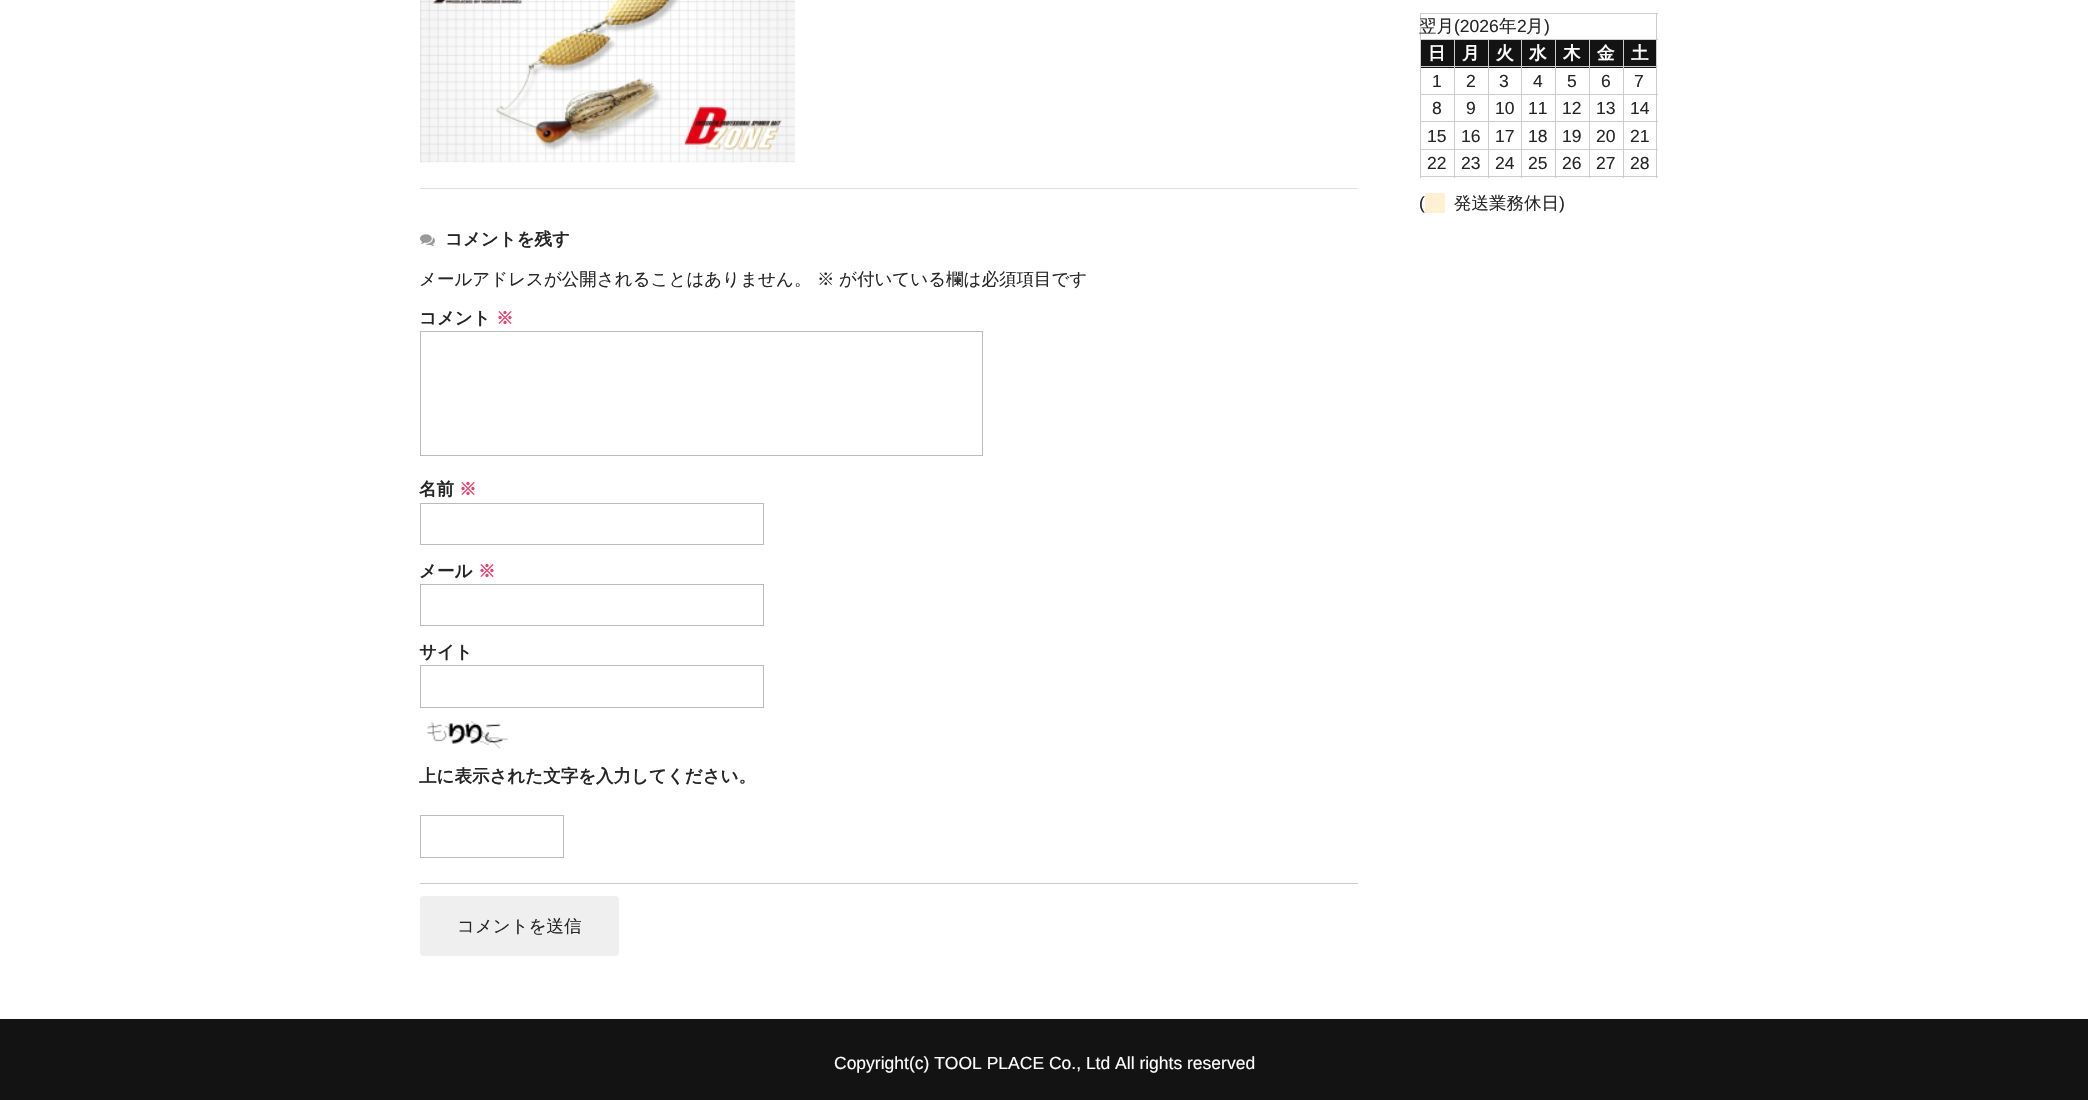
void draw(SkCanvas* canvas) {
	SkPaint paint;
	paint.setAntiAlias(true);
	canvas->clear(0xffffffff);
	paint.setColor(0xffcccccc);
	canvas->drawRect(SkRect::MakeXYWH(1420, 13, 238, 1), paint);
	canvas->drawRect(SkRect::MakeXYWH(1656, 13, 1, 165), paint);
	canvas->drawRect(SkRect::MakeXYWH(1420, 176, 238, 1), paint);
	canvas->drawRect(SkRect::MakeXYWH(1420, 13, 1, 165), paint);
	SkFont f1(fontMgr->matchFamilyStyle("WenQuanYi Zen Hei", SkFontStyle(500, SkFontStyle::kNormal_Width, SkFontStyle::kUpright_Slant)), 17.5);
	f1.setSubpixel(true);
	paint.setColor(0xff262626);
	canvas->drawString("翌月", 1419, 32, f1, paint);
	SkFont f2(fontMgr->matchFamilyStyle("Liberation Sans", SkFontStyle::Normal()), 17.5);
	f2.setSubpixel(true);
	canvas->drawString("(2026", 1454, 32, f2, paint);
	canvas->drawString("年", 1499, 32, f1, paint);
	canvas->drawString("2", 1517, 32, f2, paint);
	canvas->drawString("月", 1526, 32, f1, paint);
	canvas->drawString(")", 1544, 32, f2, paint);
	paint.setColor(0xff131313);
	canvas->drawRect(SkRect::MakeXYWH(1421, 40, 33, 28), paint);
	paint.setColor(0xffcccccc);
	canvas->drawRect(SkRect::MakeXYWH(1623, 39, 35, 1), paint);
	paint.setColor(0xff131313);
	canvas->drawRect(SkRect::MakeXYWH(1590, 40, 33, 28), paint);
	canvas->drawRect(SkRect::MakeXYWH(1624, 40, 32, 28), paint);
	paint.setColor(0xffcccccc);
	canvas->drawRect(SkRect::MakeXYWH(1623, 66, 35, 1), paint);
	canvas->drawRect(SkRect::MakeXYWH(1623, 94, 35, 1), paint);
	canvas->drawRect(SkRect::MakeXYWH(1623, 121, 35, 1), paint);
	canvas->drawRect(SkRect::MakeXYWH(1623, 149, 35, 1), paint);
	canvas->drawRect(SkRect::MakeXYWH(1623, 149, 1, 29), paint);
	canvas->drawRect(SkRect::MakeXYWH(1589, 149, 35, 1), paint);
	canvas->drawRect(SkRect::MakeXYWH(1623, 121, 1, 29), paint);
	canvas->drawRect(SkRect::MakeXYWH(1589, 121, 35, 1), paint);
	canvas->drawRect(SkRect::MakeXYWH(1623, 94, 1, 29), paint);
	canvas->drawRect(SkRect::MakeXYWH(1589, 94, 35, 1), paint);
	canvas->drawRect(SkRect::MakeXYWH(1623, 66, 1, 29), paint);
	canvas->drawRect(SkRect::MakeXYWH(1589, 66, 35, 1), paint);
	canvas->drawRect(SkRect::MakeXYWH(1623, 39, 1, 29), paint);
	canvas->drawRect(SkRect::MakeXYWH(1589, 39, 35, 1), paint);
	paint.setColor(0xff131313);
	canvas->drawRect(SkRect::MakeXYWH(1556, 40, 33, 28), paint);
	paint.setColor(0xffcccccc);
	canvas->drawRect(SkRect::MakeXYWH(1589, 149, 1, 29), paint);
	canvas->drawRect(SkRect::MakeXYWH(1555, 149, 35, 1), paint);
	canvas->drawRect(SkRect::MakeXYWH(1589, 121, 1, 29), paint);
	canvas->drawRect(SkRect::MakeXYWH(1555, 121, 35, 1), paint);
	canvas->drawRect(SkRect::MakeXYWH(1589, 94, 1, 29), paint);
	canvas->drawRect(SkRect::MakeXYWH(1555, 94, 35, 1), paint);
	canvas->drawRect(SkRect::MakeXYWH(1589, 66, 1, 29), paint);
	canvas->drawRect(SkRect::MakeXYWH(1555, 66, 35, 1), paint);
	canvas->drawRect(SkRect::MakeXYWH(1589, 39, 1, 29), paint);
	canvas->drawRect(SkRect::MakeXYWH(1555, 39, 35, 1), paint);
	paint.setColor(0xff131313);
	canvas->drawRect(SkRect::MakeXYWH(1522, 40, 33, 28), paint);
	paint.setColor(0xffcccccc);
	canvas->drawRect(SkRect::MakeXYWH(1555, 149, 1, 29), paint);
	canvas->drawRect(SkRect::MakeXYWH(1521, 149, 35, 1), paint);
	canvas->drawRect(SkRect::MakeXYWH(1555, 121, 1, 29), paint);
	canvas->drawRect(SkRect::MakeXYWH(1521, 121, 35, 1), paint);
	canvas->drawRect(SkRect::MakeXYWH(1555, 94, 1, 29), paint);
	canvas->drawRect(SkRect::MakeXYWH(1521, 94, 35, 1), paint);
	canvas->drawRect(SkRect::MakeXYWH(1555, 66, 1, 29), paint);
	canvas->drawRect(SkRect::MakeXYWH(1521, 66, 35, 1), paint);
	canvas->drawRect(SkRect::MakeXYWH(1555, 39, 1, 29), paint);
	canvas->drawRect(SkRect::MakeXYWH(1521, 39, 35, 1), paint);
	paint.setColor(0xff131313);
	canvas->drawRect(SkRect::MakeXYWH(1489, 40, 32, 28), paint);
	paint.setColor(0xffcccccc);
	canvas->drawRect(SkRect::MakeXYWH(1521, 149, 1, 29), paint);
	canvas->drawRect(SkRect::MakeXYWH(1488, 149, 35, 1), paint);
	canvas->drawRect(SkRect::MakeXYWH(1521, 121, 1, 29), paint);
	canvas->drawRect(SkRect::MakeXYWH(1488, 121, 35, 1), paint);
	canvas->drawRect(SkRect::MakeXYWH(1521, 94, 1, 29), paint);
	canvas->drawRect(SkRect::MakeXYWH(1488, 94, 35, 1), paint);
	canvas->drawRect(SkRect::MakeXYWH(1521, 66, 1, 29), paint);
	canvas->drawRect(SkRect::MakeXYWH(1488, 66, 35, 1), paint);
	canvas->drawRect(SkRect::MakeXYWH(1521, 39, 1, 29), paint);
	canvas->drawRect(SkRect::MakeXYWH(1488, 39, 35, 1), paint);
	paint.setColor(0xff131313);
	canvas->drawRect(SkRect::MakeXYWH(1455, 40, 33, 28), paint);
	paint.setColor(0xffcccccc);
	canvas->drawRect(SkRect::MakeXYWH(1488, 149, 1, 29), paint);
	canvas->drawRect(SkRect::MakeXYWH(1454, 149, 35, 1), paint);
	canvas->drawRect(SkRect::MakeXYWH(1488, 121, 1, 29), paint);
	canvas->drawRect(SkRect::MakeXYWH(1454, 121, 35, 1), paint);
	canvas->drawRect(SkRect::MakeXYWH(1488, 94, 1, 29), paint);
	canvas->drawRect(SkRect::MakeXYWH(1454, 94, 35, 1), paint);
	canvas->drawRect(SkRect::MakeXYWH(1488, 66, 1, 29), paint);
	canvas->drawRect(SkRect::MakeXYWH(1454, 66, 35, 1), paint);
	canvas->drawRect(SkRect::MakeXYWH(1488, 39, 1, 29), paint);
	canvas->drawRect(SkRect::MakeXYWH(1454, 39, 35, 1), paint);
	canvas->drawRect(SkRect::MakeXYWH(1454, 149, 1, 29), paint);
	canvas->drawRect(SkRect::MakeXYWH(1420, 149, 35, 1), paint);
	canvas->drawRect(SkRect::MakeXYWH(1454, 121, 1, 29), paint);
	canvas->drawRect(SkRect::MakeXYWH(1420, 121, 35, 1), paint);
	canvas->drawRect(SkRect::MakeXYWH(1454, 94, 1, 29), paint);
	canvas->drawRect(SkRect::MakeXYWH(1420, 94, 35, 1), paint);
	canvas->drawRect(SkRect::MakeXYWH(1454, 66, 1, 29), paint);
	canvas->drawRect(SkRect::MakeXYWH(1420, 66, 35, 1), paint);
	canvas->drawRect(SkRect::MakeXYWH(1454, 39, 1, 29), paint);
	canvas->drawRect(SkRect::MakeXYWH(1420, 39, 35, 1), paint);
	SkFont f3(fontMgr->matchFamilyStyle("WenQuanYi Zen Hei", SkFontStyle::Bold()), 17.5);
	f3.setSubpixel(true);
	paint.setColor(0xffffffff);
	canvas->drawString("日", 1428, 59, f3, paint);
	canvas->drawString("月", 1462, 59, f3, paint);
	canvas->drawString("火", 1496, 59, f3, paint);
	canvas->drawString("水", 1529, 59, f3, paint);
	canvas->drawString("木", 1563, 59, f3, paint);
	canvas->drawString("金", 1597, 59, f3, paint);
	canvas->drawString("土", 1631, 59, f3, paint);
	paint.setColor(0xff262626);
	canvas->drawString("1", 1432, 87, f2, paint);
	canvas->drawString("2", 1466, 87, f2, paint);
	canvas->drawString("3", 1499, 87, f2, paint);
	canvas->drawString("4", 1533, 87, f2, paint);
	canvas->drawString("5", 1567, 87, f2, paint);
	canvas->drawString("6", 1601, 87, f2, paint);
	canvas->drawString("7", 1634, 87, f2, paint);
	canvas->drawString("8", 1432, 114, f2, paint);
	canvas->drawString("9", 1466, 114, f2, paint);
	canvas->drawString("10", 1495, 114, f2, paint);
	canvas->drawString("11", 1528, 114, f2, paint);
	canvas->drawString("12", 1562, 114, f2, paint);
	canvas->drawString("13", 1596, 114, f2, paint);
	canvas->drawString("14", 1630, 114, f2, paint);
	canvas->drawString("15", 1427, 142, f2, paint);
	canvas->drawString("16", 1461, 142, f2, paint);
	canvas->drawString("17", 1495, 142, f2, paint);
	canvas->drawString("18", 1528, 142, f2, paint);
	canvas->drawString("19", 1562, 142, f2, paint);
	canvas->drawString("20", 1596, 142, f2, paint);
	canvas->drawString("21", 1630, 142, f2, paint);
	canvas->drawString("22", 1427, 169, f2, paint);
	canvas->drawString("23", 1461, 169, f2, paint);
	canvas->drawString("24", 1495, 169, f2, paint);
	canvas->drawString("25", 1528, 169, f2, paint);
	canvas->drawString("26", 1562, 169, f2, paint);
	canvas->drawString("27", 1596, 169, f2, paint);
	canvas->drawString("28", 1630, 169, f2, paint);
	canvas->drawString("(", 1419, 209, f2, paint);
	paint.setColor(0xfffff0d1);
	canvas->drawRect(SkRect::MakeXYWH(1425, 193, 20, 20), paint);
	paint.setColor(0xff262626);
	canvas->drawString("発送業務休日", 1454, 209, f1, paint);
	canvas->drawString(")", 1559, 209, f2, paint);
	canvas->drawImageRect(SkImages::DeferredFromEncodedData(SkData::MakeFromFileName("img1.png")), SkRect::MakeXYWH(420, 0, 375, 163), SkSamplingOptions());
	paint.setColor(0xffe0e0e0);
	canvas->drawRect(SkRect::MakeXYWH(420, 188, 938, 1), paint);
	canvas->drawImageRect(SkImages::DeferredFromEncodedData(SkData::MakeFromFileName("img2.png")), SkRect::MakeXYWH(420, 234, 15, 12), SkSamplingOptions());
	paint.setColor(0xff262626);
	canvas->drawString("コメントを残す", 445, 245, f3, paint);
	canvas->drawString("メールアドレスが公開されることはありません。", 419, 285, f1, paint);
	canvas->drawString("※", 817, 285, f1, paint);
	canvas->drawString("が付いている欄は必須項目です", 839, 285, f1, paint);
	canvas->drawString("コメント", 419, 324, f3, paint);
	paint.setColor(0xffff3366);
	canvas->drawString("※", 496, 324, f3, paint);
	paint.setStroke(true);
	paint.setStrokeWidth(1);
	paint.setColor(0xffbbbbbb);
	canvas->drawRect(SkRect::MakeXYWH(420.5, 331.5, 562, 124), paint);
	paint.setStroke(false);
	paint.setColor(0xff262626);
	canvas->drawString("名前", 419, 495, f3, paint);
	paint.setColor(0xffff3366);
	canvas->drawString("※", 459, 495, f3, paint);
	paint.setStroke(true);
	paint.setColor(0xffbbbbbb);
	canvas->drawRect(SkRect::MakeXYWH(420.5, 503.5, 343, 41), paint);
	paint.setStroke(false);
	paint.setColor(0xff262626);
	canvas->drawString("メール", 419, 577, f3, paint);
	paint.setColor(0xffff3366);
	canvas->drawString("※", 478, 577, f3, paint);
	paint.setStroke(true);
	paint.setColor(0xffbbbbbb);
	canvas->drawRect(SkRect::MakeXYWH(420.5, 584.5, 343, 41), paint);
	paint.setStroke(false);
	paint.setColor(0xff262626);
	canvas->drawString("サイト", 419, 658, f3, paint);
	paint.setStroke(true);
	paint.setColor(0xffbbbbbb);
	canvas->drawRect(SkRect::MakeXYWH(420.5, 665.5, 343, 42), paint);
	canvas->drawImageRect(SkImages::DeferredFromEncodedData(SkData::MakeFromFileName("img3.png")), SkRect::MakeXYWH(427, 721, 81, 28), SkSamplingOptions());
	paint.setStroke(false);
	paint.setColor(0xff262626);
	canvas->drawString("上に表示された文字を入力してください。", 419, 782, f3, paint);
	paint.setStroke(true);
	paint.setColor(0xffbbbbbb);
	canvas->drawRect(SkRect::MakeXYWH(420.5, 815.5, 143, 42), paint);
	paint.setStroke(false);
	paint.setColor(0xffcccccc);
	canvas->drawRect(SkRect::MakeXYWH(420, 883, 938, 1), paint);
	paint.setColor(0xffefefef);
	canvas->drawRoundRect(SkRect::MakeXYWH(420, 896, 199, 60), 4, 4, paint);
	paint.setColor(0xff262626);
	canvas->drawString("コメントを送信", 457, 932, f1, paint);
	paint.setColor(0xff131313);
	canvas->drawRect(SkRect::MakeXYWH(0, 1019, 2088, 81), paint);
	paint.setColor(0xffffffff);
	canvas->drawString("Copyright(c) TOOL PLACE Co., Ltd All rights reserved", 834, 1069, f2, paint);
}
